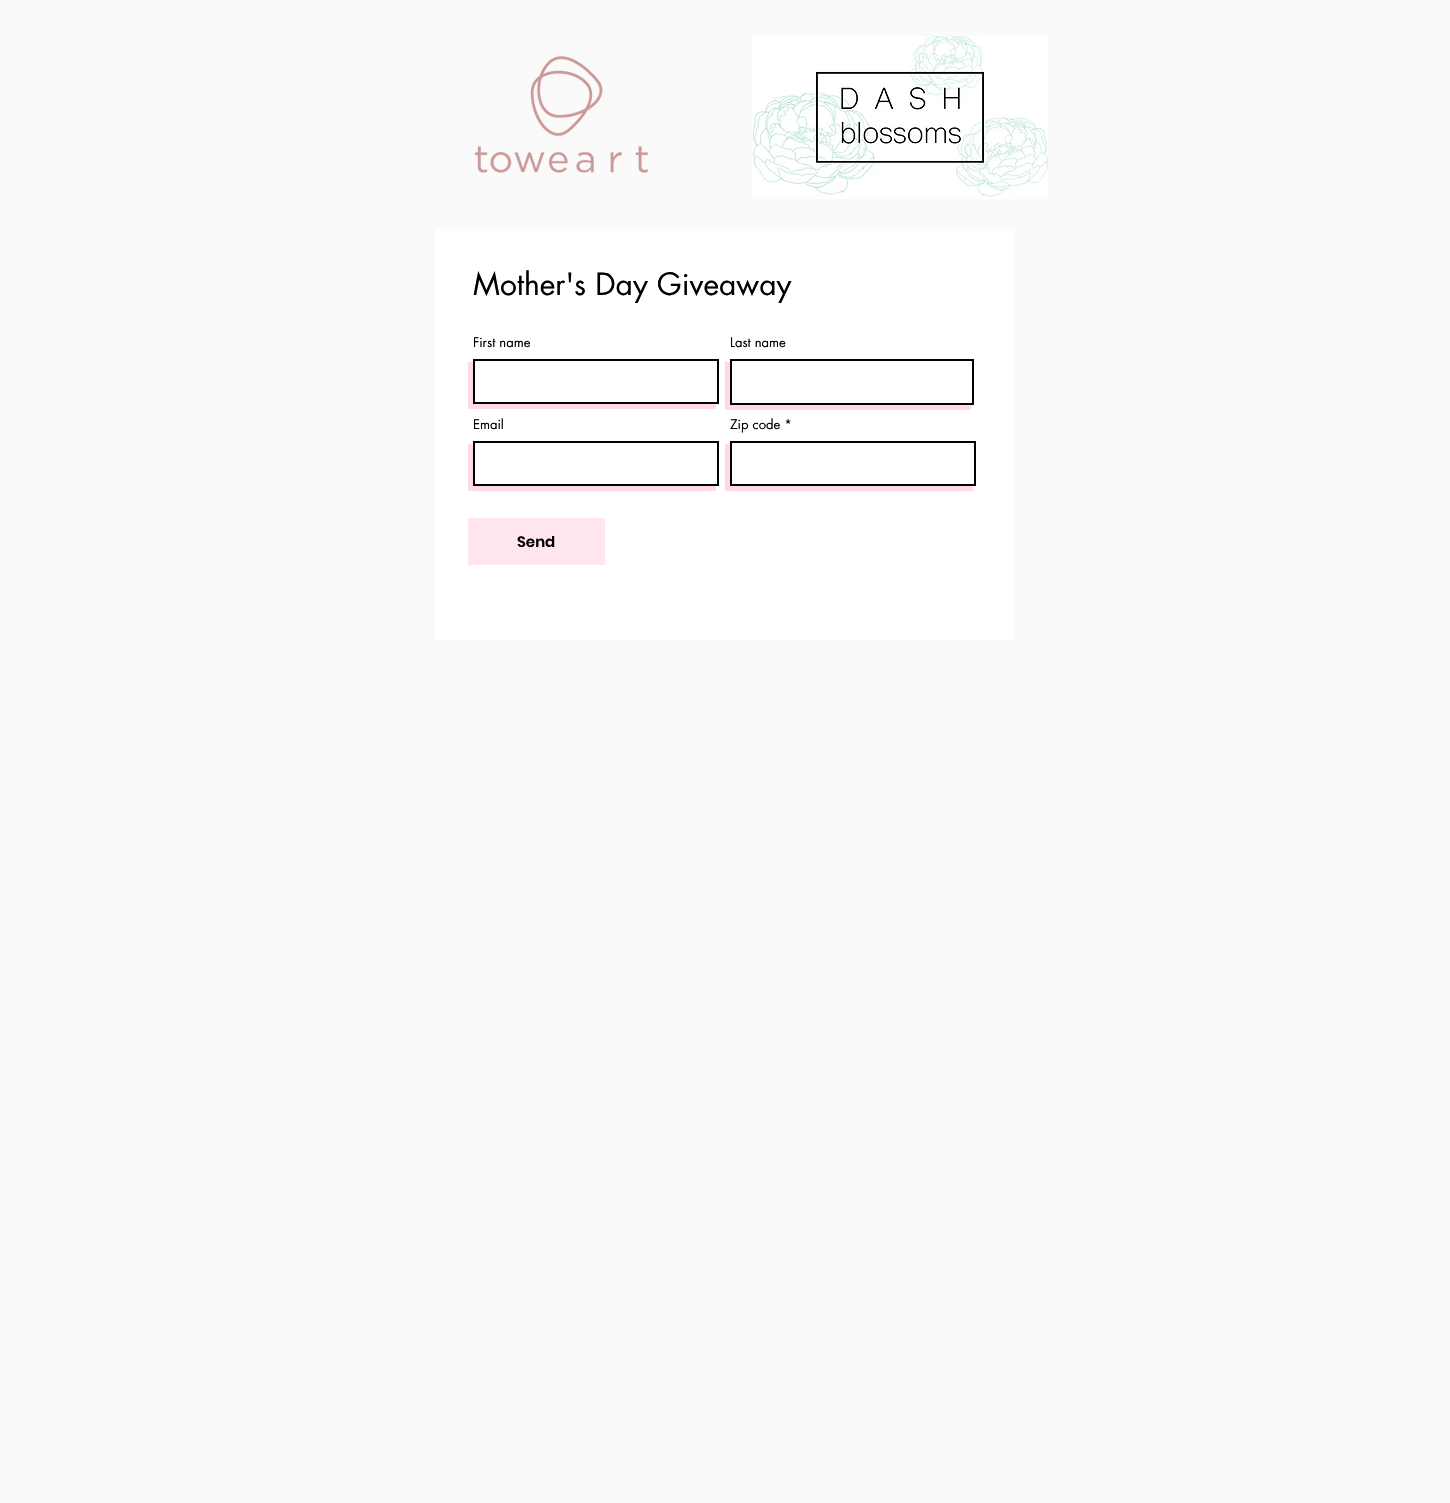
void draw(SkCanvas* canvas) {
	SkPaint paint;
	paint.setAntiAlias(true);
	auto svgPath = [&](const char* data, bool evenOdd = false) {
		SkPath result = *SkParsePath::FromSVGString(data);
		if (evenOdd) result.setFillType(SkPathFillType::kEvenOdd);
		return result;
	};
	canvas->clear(0xfffafafa);
	canvas->drawImageRect(SkImages::DeferredFromEncodedData(SkData::MakeFromFileName("img1.png")), SkRect::MakeXYWH(474, 56, 175, 117), SkSamplingOptions());
	canvas->drawImageRect(SkImages::DeferredFromEncodedData(SkData::MakeFromFileName("img2.png")), SkRect::MakeXYWH(752, 36, 296, 163), SkSamplingOptions());
	paint.setColor(0xffffffff);
	canvas->drawRect(SkRect::MakeXYWH(435, 229, 580, 411), paint);
	SkFont f1(fontMgr->matchFamilyStyle("futura", SkFontStyle::Normal()), 30);
	f1.setSubpixel(true);
	paint.setColor(0xff000000);
	canvas->drawString("Mother's Day Giveaway", 473, 295, f1, paint);
	SkFont f2(fontMgr->matchFamilyStyle("futura", SkFontStyle::Normal()), 13);
	f2.setSubpixel(true);
	canvas->drawString("First name", 473, 347, f2, paint);
	paint.setColor(0xffffdae4);
	canvas->drawPath(svgPath("M468 362V409H716V404H473V362Z"), paint);
	paint.setStroke(true);
	paint.setStrokeWidth(2);
	paint.setColor(0xff000000);
	canvas->drawRect(SkRect::MakeXYWH(474, 360, 244, 43), paint);
	paint.setStroke(false);
	canvas->drawString("Last name", 730, 347, f2, paint);
	paint.setColor(0xffffdae4);
	canvas->drawPath(svgPath("M725 362V410H971V405H730V362Z"), paint);
	paint.setStroke(true);
	paint.setColor(0xff000000);
	canvas->drawRect(SkRect::MakeXYWH(731, 360, 242, 44), paint);
	paint.setStroke(false);
	canvas->drawString("Email", 473, 429, f2, paint);
	paint.setColor(0xffffdae4);
	canvas->drawPath(svgPath("M468 444V491H716V486H473V444Z"), paint);
	paint.setStroke(true);
	paint.setColor(0xff000000);
	canvas->drawRect(SkRect::MakeXYWH(474, 442, 244, 43), paint);
	paint.setStroke(false);
	canvas->drawString("Zip code *", 730, 429, f2, paint);
	paint.setColor(0xffffdae4);
	canvas->drawPath(svgPath("M725 444V491H973V486H730V444Z"), paint);
	paint.setStroke(true);
	paint.setColor(0xff000000);
	canvas->drawRect(SkRect::MakeXYWH(731, 442, 244, 43), paint);
	paint.setStroke(false);
	paint.setColor(0xffffe5ec);
	canvas->drawRect(SkRect::MakeXYWH(468, 518, 137, 47), paint);
	SkFont f3(fontMgr->matchFamilyStyle("Poppins", SkFontStyle(600, SkFontStyle::kNormal_Width, SkFontStyle::kUpright_Slant)), 15);
	f3.setSubpixel(true);
	paint.setColor(0xff000000);
	canvas->drawString("Send", 517, 547, f3, paint);
}
